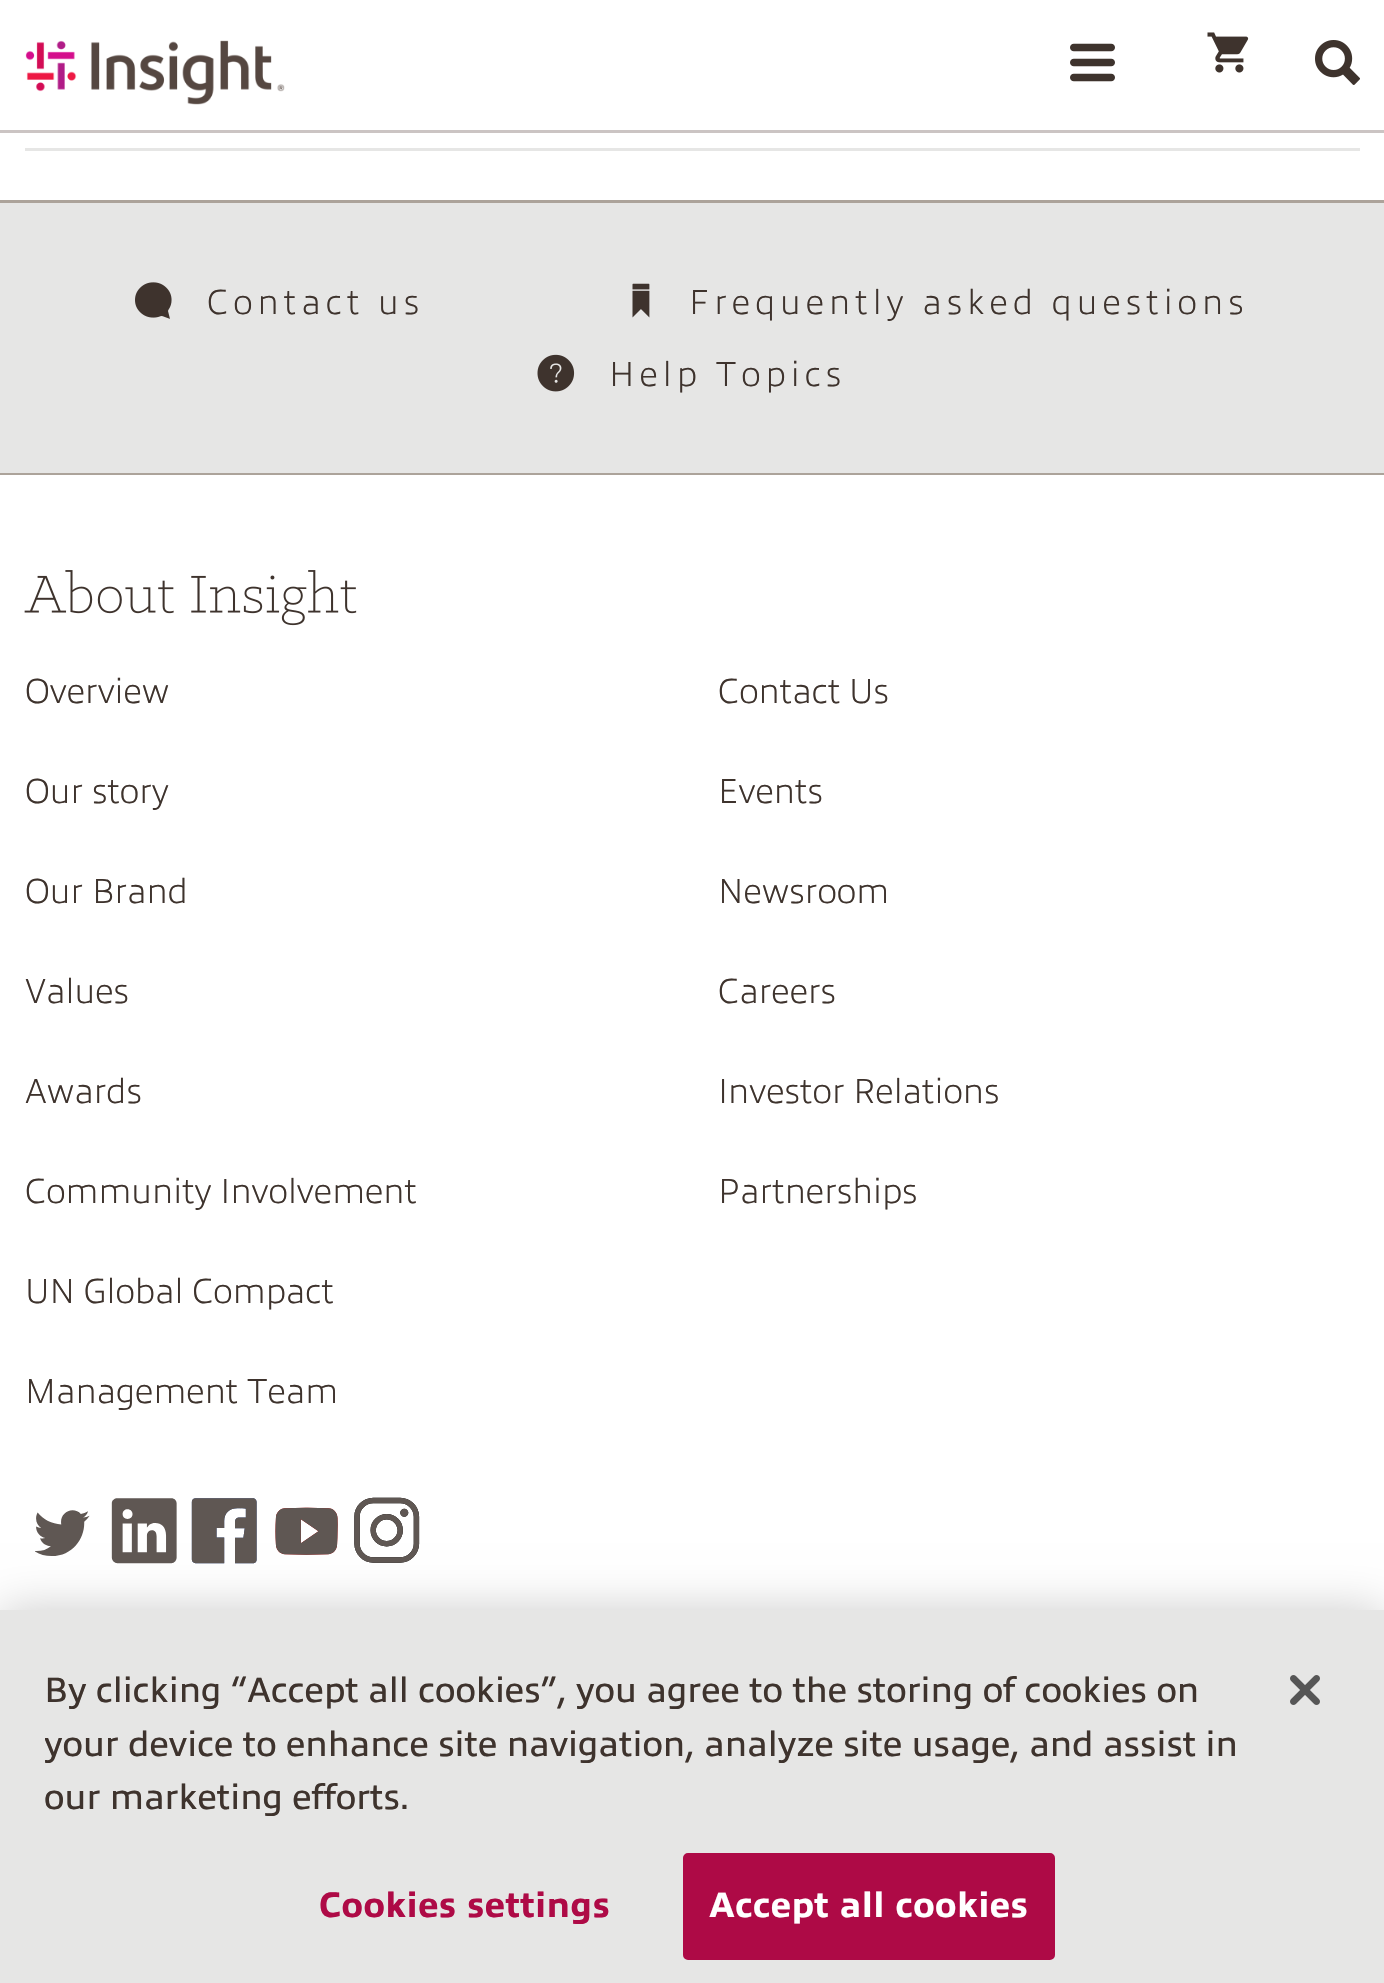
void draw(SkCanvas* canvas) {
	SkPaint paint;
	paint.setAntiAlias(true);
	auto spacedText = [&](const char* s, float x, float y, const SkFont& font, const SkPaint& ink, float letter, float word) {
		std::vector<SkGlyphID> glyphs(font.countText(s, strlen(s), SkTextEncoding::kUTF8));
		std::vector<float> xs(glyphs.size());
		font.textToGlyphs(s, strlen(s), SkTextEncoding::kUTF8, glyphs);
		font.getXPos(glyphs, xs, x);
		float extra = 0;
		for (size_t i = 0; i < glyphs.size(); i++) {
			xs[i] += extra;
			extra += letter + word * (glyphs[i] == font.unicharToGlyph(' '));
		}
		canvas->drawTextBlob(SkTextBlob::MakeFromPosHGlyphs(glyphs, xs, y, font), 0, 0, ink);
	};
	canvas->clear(0xffffffff);
	paint.setColor(0xffcbc4c3);
	canvas->drawRect(SkRect::MakeXYWH(0, 130, 1384, 3), paint);
	canvas->drawImageRect(SkImages::DeferredFromEncodedData(SkData::MakeFromFileName("img1.png")), SkRect::MakeXYWH(25, 40, 260, 65), SkSamplingOptions());
	canvas->drawImageRect(SkImages::DeferredFromEncodedData(SkData::MakeFromFileName("img2.png")), SkRect::MakeXYWH(1070, 43, 45, 39), SkSamplingOptions());
	canvas->drawImageRect(SkImages::DeferredFromEncodedData(SkData::MakeFromFileName("img3.png")), SkRect::MakeXYWH(1207, 32, 42, 41), SkSamplingOptions());
	canvas->drawImageRect(SkImages::DeferredFromEncodedData(SkData::MakeFromFileName("img4.png")), SkRect::MakeXYWH(1315, 40, 45, 45), SkSamplingOptions());
	paint.setColor(0xffe6e6e5);
	canvas->drawRect(SkRect::MakeXYWH(25, 148, 1335, 3), paint);
	canvas->drawRect(SkRect::MakeXYWH(0, 203, 1384, 270), paint);
	paint.setColor(0xffaca39a);
	canvas->drawRect(SkRect::MakeXYWH(0, 200, 1384, 3), paint);
	canvas->drawRect(SkRect::MakeXYWH(0, 473, 1384, 2), paint);
	canvas->drawImageRect(SkImages::DeferredFromEncodedData(SkData::MakeFromFileName("img5.png")), SkRect::MakeXYWH(135, 282, 37, 37), SkSamplingOptions());
	SkFont f1(fontMgr->matchFamilyStyle("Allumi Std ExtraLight", SkFontStyle(200, SkFontStyle::kNormal_Width, SkFontStyle::kUpright_Slant)), 35);
	f1.setSubpixel(true);
	paint.setColor(0xff3e332d);
	spacedText("Contact us", 207, 314, f1, paint, 5, 0);
	canvas->drawImageRect(SkImages::DeferredFromEncodedData(SkData::MakeFromFileName("img6.png")), SkRect::MakeXYWH(632, 283, 18, 35), SkSamplingOptions());
	spacedText("Frequently asked questions", 689, 314, f1, paint, 5, 0);
	canvas->drawImageRect(SkImages::DeferredFromEncodedData(SkData::MakeFromFileName("img7.png")), SkRect::MakeXYWH(537, 354, 38, 38), SkSamplingOptions());
	spacedText("Help Topics", 609, 386, f1, paint, 5, 0);
	canvas->drawImageRect(SkImages::DeferredFromEncodedData(SkData::MakeFromFileName("img8.png")), SkRect::MakeXYWH(24, 570, 333, 56), SkSamplingOptions());
	canvas->drawString("Overview", 25, 703, f1, paint);
	canvas->drawString("Our story", 25, 803, f1, paint);
	canvas->drawString("Our Brand", 25, 903, f1, paint);
	canvas->drawString("Values", 25, 1003, f1, paint);
	canvas->drawString("Awards", 25, 1103, f1, paint);
	canvas->drawString("Community Involvement", 25, 1203, f1, paint);
	canvas->drawString("UN Global Compact", 25, 1303, f1, paint);
	canvas->drawString("Management Team", 25, 1403, f1, paint);
	canvas->drawString("Contact Us", 718, 703, f1, paint);
	canvas->drawString("Events", 718, 803, f1, paint);
	canvas->drawString("Newsroom", 718, 903, f1, paint);
	canvas->drawString("Careers", 718, 1003, f1, paint);
	canvas->drawString("Investor Relations", 718, 1103, f1, paint);
	canvas->drawString("Partnerships", 718, 1203, f1, paint);
	canvas->drawImageRect(SkImages::DeferredFromEncodedData(SkData::MakeFromFileName("img9.png")), SkRect::MakeXYWH(35, 1510, 55, 46), SkSamplingOptions());
	canvas->drawImageRect(SkImages::DeferredFromEncodedData(SkData::MakeFromFileName("img10.png")), SkRect::MakeXYWH(111, 1498, 66, 66), SkSamplingOptions());
	canvas->drawImageRect(SkImages::DeferredFromEncodedData(SkData::MakeFromFileName("img11.png")), SkRect::MakeXYWH(191, 1498, 66, 66), SkSamplingOptions());
	canvas->drawImageRect(SkImages::DeferredFromEncodedData(SkData::MakeFromFileName("img12.png")), SkRect::MakeXYWH(275, 1507, 63, 48), SkSamplingOptions());
	canvas->drawImageRect(SkImages::DeferredFromEncodedData(SkData::MakeFromFileName("img13.png")), SkRect::MakeXYWH(354, 1497, 66, 66), SkSamplingOptions());
	paint.setColor(0x33000000);
	paint.setMaskFilter(SkMaskFilter::MakeBlur(kNormal_SkBlurStyle, 22.5));
	canvas->drawRect(SkRect::MakeXYWH(0, 1610, 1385, 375), paint);
	paint.setMaskFilter(nullptr);
	paint.setColor(0xffe6e6e5);
	canvas->drawRect(SkRect::MakeXYWH(0, 1610, 1384, 373), paint);
	SkFont f2(fontMgr->matchFamilyStyle("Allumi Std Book", SkFontStyle::Normal()), 35.55);
	f2.setSubpixel(true);
	paint.setColor(0xff3e332d);
	canvas->drawString("By clicking “Accept all cookies”, you agree to the storing of cookies on", 44, 1702, f2, paint);
	canvas->save();
	canvas->clipRect(SkRect::MakeXYWH(45, 1665, 1228, 160));
	canvas->drawString("your device to enhance site navigation, analyze site usage, and assist in", 44, 1756, f2, paint);
	canvas->restore();
	canvas->drawString("our marketing efforts.", 44, 1809, f2, paint);
	SkFont f3(fontMgr->matchFamilyStyle("Allumi Std Book", SkFontStyle(800, SkFontStyle::kNormal_Width, SkFontStyle::kUpright_Slant)), 35.55);
	f3.setSubpixel(true);
	paint.setColor(0xffae0a46);
	spacedText("Cookies settings", 319, 1917, f3, paint, 0.4, 0);
	canvas->drawRoundRect(SkRect::MakeXYWH(684.5, 1854.5, 369, 104), 3.5, 3.5, paint);
	paint.setStroke(true);
	paint.setStrokeWidth(3);
	canvas->drawRoundRect(SkRect::MakeXYWH(684.5, 1854.5, 369, 104), 3.5, 3.5, paint);
	paint.setStroke(false);
	paint.setColor(0xffffffff);
	spacedText("Accept all cookies", 709, 1917, f3, paint, 0.4, 0);
	canvas->drawImageRect(SkImages::DeferredFromEncodedData(SkData::MakeFromFileName("img14.png")), SkRect::MakeXYWH(1290, 1675, 30, 30), SkSamplingOptions());
}
